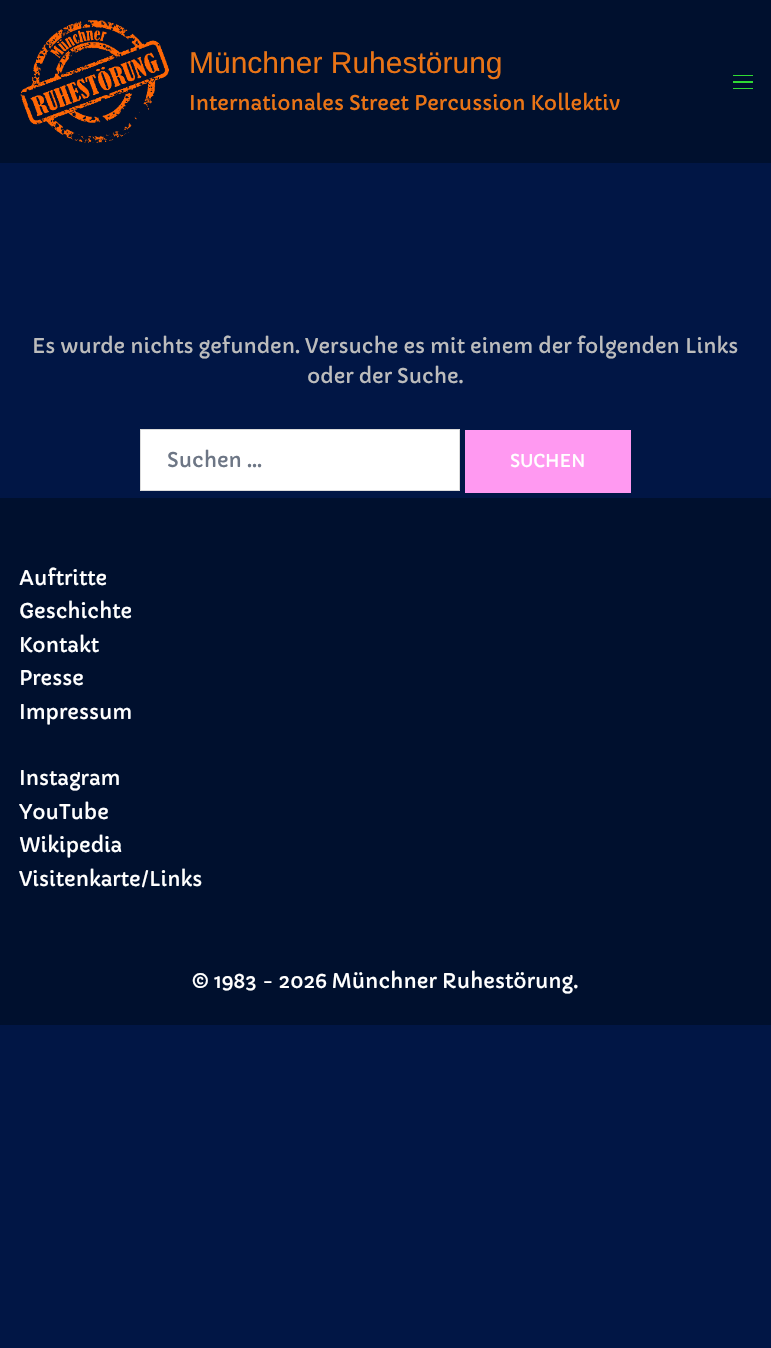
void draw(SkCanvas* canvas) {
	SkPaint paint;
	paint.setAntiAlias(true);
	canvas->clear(0xff011645);
	paint.setColor(0xff00102e);
	canvas->drawRect(SkRect::MakeXYWH(0, 0, 771, 163), paint);
	canvas->drawImageRect(SkImages::DeferredFromEncodedData(SkData::MakeFromFileName("img1.png")), SkRect::MakeXYWH(20, 20, 149, 123), SkSamplingOptions());
	SkFont f1(fontMgr->matchFamilyStyle("Liberation Sans", SkFontStyle::Normal()), 30);
	f1.setSubpixel(true);
	paint.setColor(0xffea7416);
	canvas->drawString("Münchner Ruhestörung", 189, 73, f1, paint);
	SkFont f2(fontMgr->matchFamilyStyle("Capriola", SkFontStyle::Normal()), 20);
	f2.setSubpixel(true);
	canvas->drawString("Internationales Street Percussion Kollektiv", 189, 110, f2, paint);
	paint.setColor(0xff30da33);
	canvas->drawRect(SkRect::MakeXYWH(733, 75, 20, 1), paint);
	canvas->drawRect(SkRect::MakeXYWH(733, 81, 20, 2), paint);
	canvas->drawRect(SkRect::MakeXYWH(733, 88, 20, 1), paint);
	paint.setColor(0xffbcbcbc);
	canvas->drawString("Es wurde nichts gefunden. Versuche es mit einem der folgenden Links", 32, 353, f2, paint);
	canvas->drawString("oder der Suche.", 307, 383, f2, paint);
	paint.setColor(0xffffffff);
	canvas->drawRect(SkRect::MakeXYWH(140.5, 429.5, 319, 61), paint);
	paint.setStroke(true);
	paint.setStrokeWidth(1);
	paint.setColor(0xffdbdbdb);
	canvas->drawRect(SkRect::MakeXYWH(140.5, 429.5, 319, 61), paint);
	paint.setStroke(false);
	paint.setColor(0xff6d7685);
	canvas->drawString("Suchen …", 167, 467, f2, paint);
	paint.setColor(0xffff99f1);
	canvas->drawRect(SkRect::MakeXYWH(465, 430, 166, 63), paint);
	SkFont f3(fontMgr->matchFamilyStyle("Capriola", SkFontStyle::Normal()), 17.5);
	f3.setSubpixel(true);
	paint.setColor(0xffffffff);
	canvas->drawString("SUCHEN", 510, 467, f3, paint);
	paint.setColor(0xff00102e);
	canvas->drawRect(SkRect::MakeXYWH(0, 498, 771, 527), paint);
	paint.setColor(0xffffffff);
	canvas->drawString("Auftritte", 19, 585, f2, paint);
	canvas->drawString("Geschichte", 19, 618, f2, paint);
	canvas->drawString("Kontakt", 19, 652, f2, paint);
	canvas->drawString("Presse", 19, 685, f2, paint);
	canvas->drawString("Impressum", 19, 719, f2, paint);
	canvas->drawString("Instagram", 19, 785, f2, paint);
	canvas->drawString("YouTube", 19, 819, f2, paint);
	canvas->drawString("Wikipedia", 19, 852, f2, paint);
	canvas->drawString("Visitenkarte/Links", 19, 886, f2, paint);
	canvas->drawString("© 1983 - 2026 Münchner Ruhestörung.", 192, 988, f2, paint);
}
